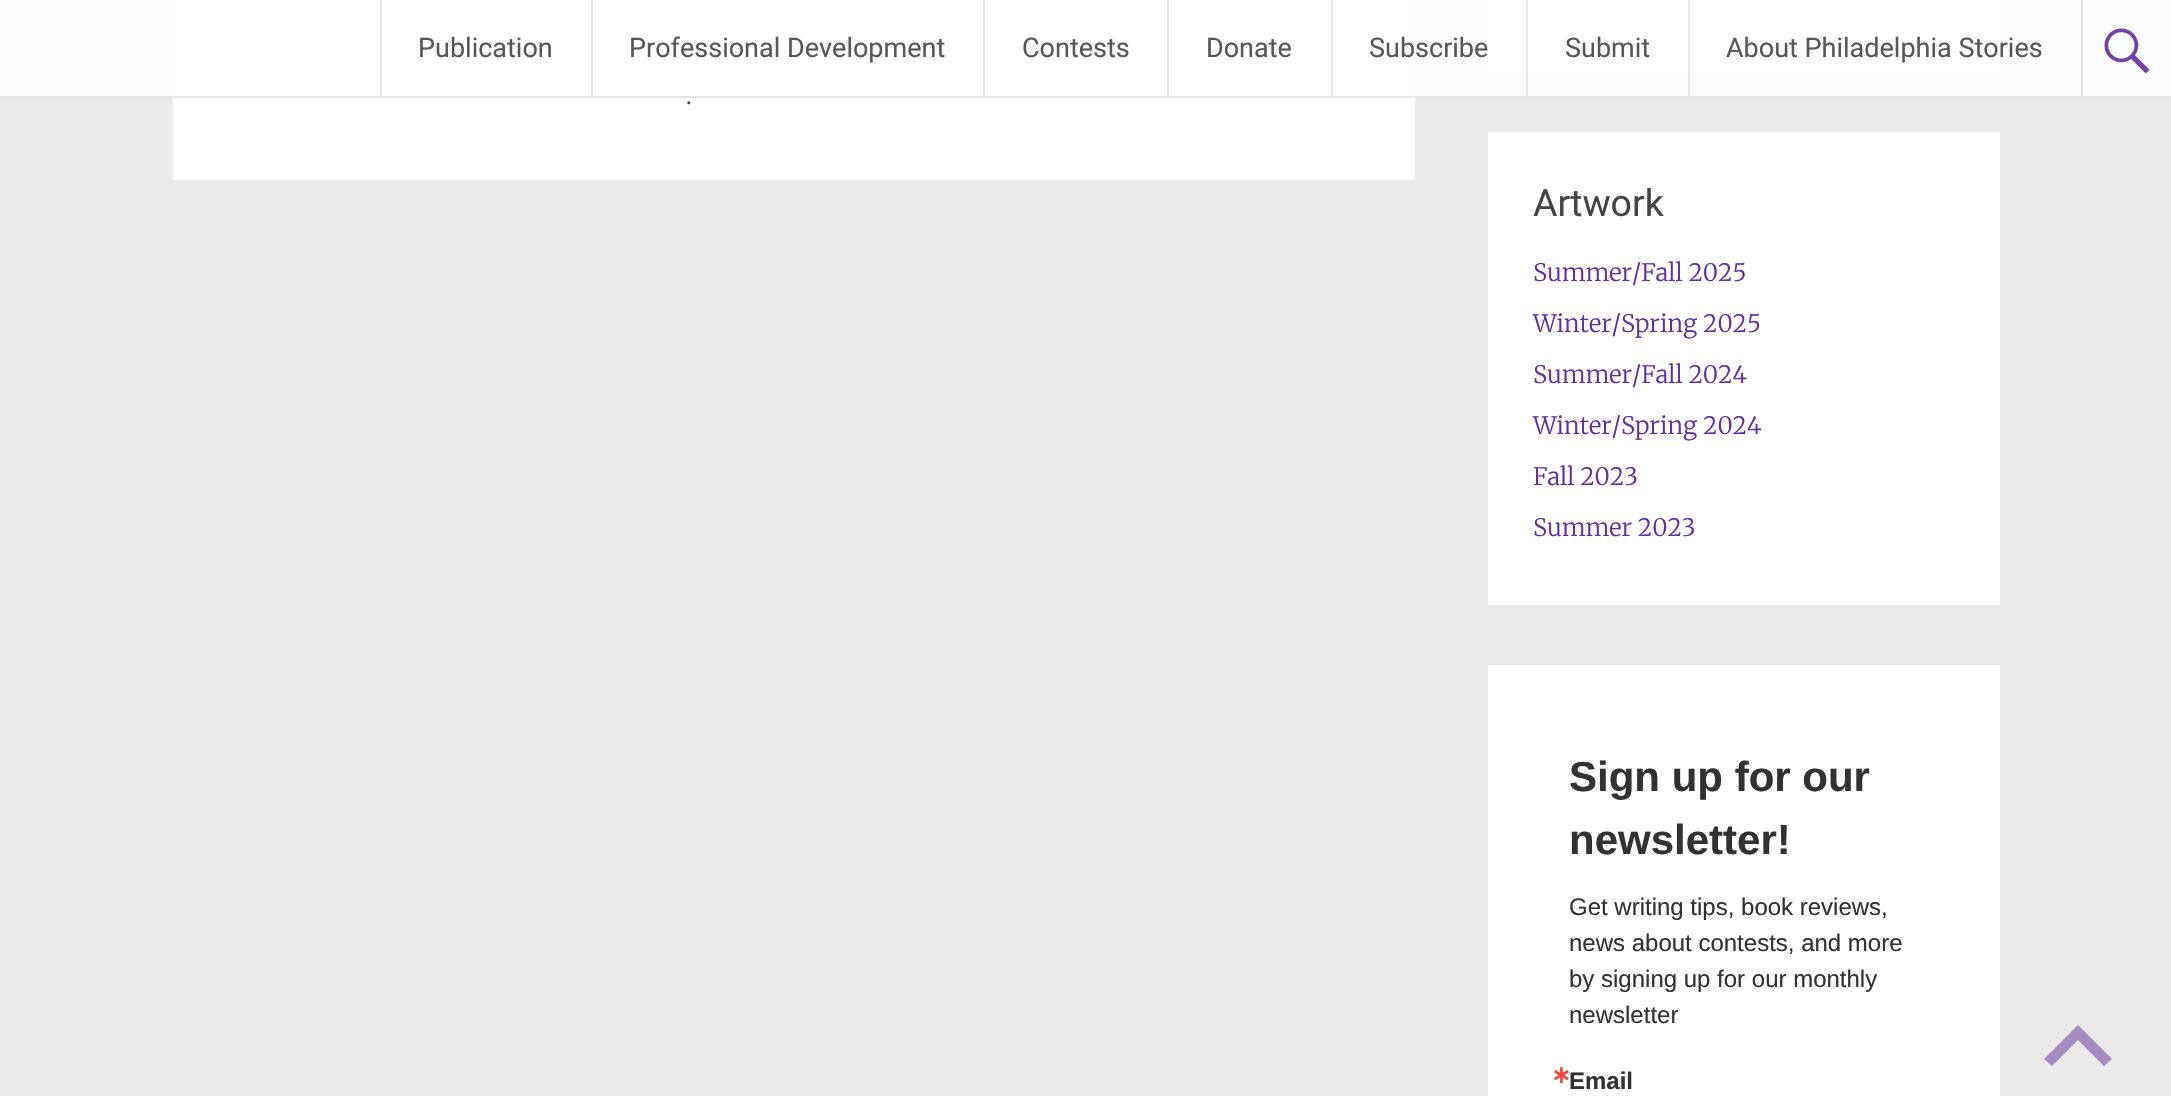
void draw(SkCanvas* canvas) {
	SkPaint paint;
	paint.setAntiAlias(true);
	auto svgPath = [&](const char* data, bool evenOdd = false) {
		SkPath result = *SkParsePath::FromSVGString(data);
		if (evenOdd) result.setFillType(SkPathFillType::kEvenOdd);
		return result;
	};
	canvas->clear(0xffeaeaea);
	paint.setColor(0xffffffff);
	canvas->drawRect(SkRect::MakeXYWH(173, 0, 1242, 180), paint);
	canvas->drawRect(SkRect::MakeXYWH(1488, 0, 512, 72), paint);
	paint.setColor(0xe6ffffff);
	canvas->drawRect(SkRect::MakeXYWH(0, 0, 2171, 98), paint);
	paint.setColor(0xe6e1e4e6);
	canvas->drawRect(SkRect::MakeXYWH(0, 96, 2171, 2), paint);
	canvas->drawRect(SkRect::MakeXYWH(380, 0, 2, 96), paint);
	SkFont f1(fontMgr->matchFamilyStyle("Roboto", SkFontStyle::Normal()), 27);
	f1.setSubpixel(true);
	paint.setColor(0xff575757);
	canvas->drawString("Publication", 418, 57, f1, paint);
	paint.setColor(0xe6e1e4e6);
	canvas->drawRect(SkRect::MakeXYWH(591, 0, 2, 96), paint);
	paint.setColor(0xff575757);
	canvas->drawString("Professional Development", 629, 57, f1, paint);
	paint.setColor(0xffe4e7e9);
	canvas->drawRect(SkRect::MakeXYWH(983, 0, 2, 96), paint);
	paint.setColor(0xff575757);
	canvas->drawString("Contests", 1022, 57, f1, paint);
	paint.setColor(0xffe4e7e9);
	canvas->drawRect(SkRect::MakeXYWH(1167, 0, 2, 96), paint);
	paint.setColor(0xff575757);
	canvas->drawString("Donate", 1206, 57, f1, paint);
	paint.setColor(0xffe4e7e9);
	canvas->drawRect(SkRect::MakeXYWH(1331, 0, 2, 96), paint);
	paint.setColor(0xff575757);
	canvas->drawString("Subscribe", 1369, 57, f1, paint);
	paint.setColor(0xffe4e7e8);
	canvas->drawRect(SkRect::MakeXYWH(1526, 0, 2, 96), paint);
	paint.setColor(0xff575757);
	canvas->drawString("Submit", 1565, 57, f1, paint);
	paint.setColor(0xffe4e7e8);
	canvas->drawRect(SkRect::MakeXYWH(1688, 0, 2, 96), paint);
	paint.setColor(0xff575757);
	canvas->drawString("About Philadelphia Stories", 1726, 57, f1, paint);
	paint.setColor(0xffe2e5e6);
	canvas->drawRect(SkRect::MakeXYWH(2081, 0, 2, 96), paint);
	canvas->drawImageRect(SkImages::DeferredFromEncodedData(SkData::MakeFromFileName("img1.png")), SkRect::MakeXYWH(2104, 28, 46, 46), SkSamplingOptions());
	SkFont f2(fontMgr->matchFamilyStyle("Merriweather", SkFontStyle(300, SkFontStyle::kNormal_Width, SkFontStyle::kUpright_Slant)), 24);
	f2.setSubpixel(true);
	paint.setColor(0xff444444);
	canvas->drawString(".", 686, 104, f2, paint);
	paint.setColor(0xffffffff);
	canvas->drawRect(SkRect::MakeXYWH(1488, 132, 512, 473), paint);
	SkFont f3(fontMgr->matchFamilyStyle("Roboto", SkFontStyle::Normal()), 37.5);
	f3.setSubpixel(true);
	paint.setColor(0xff444444);
	canvas->drawString("Artwork", 1533, 216, f3, paint);
	paint.setColor(0xff632e9b);
	canvas->drawString("Summer/Fall 2025", 1533, 281, f2, paint);
	canvas->drawString("Winter/Spring 2025", 1533, 332, f2, paint);
	canvas->drawString("Summer/Fall 2024", 1533, 383, f2, paint);
	canvas->drawString("Winter/Spring 2024", 1533, 434, f2, paint);
	canvas->drawString("Fall 2023", 1533, 485, f2, paint);
	canvas->drawString("Summer 2023", 1533, 536, f2, paint);
	paint.setColor(0xffffffff);
	canvas->drawRect(SkRect::MakeXYWH(1488, 665, 512, 431), paint);
	SkFont f4(fontMgr->matchFamilyStyle("Liberation Sans", SkFontStyle::Bold()), 42);
	f4.setSubpixel(true);
	paint.setColor(0xff323232);
	canvas->drawString("Sign up for our", 1569, 791, f4, paint);
	canvas->drawString("newsletter!", 1569, 854, f4, paint);
	SkFont f5(fontMgr->matchFamilyStyle("Liberation Sans", SkFontStyle::Normal()), 24);
	f5.setSubpixel(true);
	canvas->drawString("Get writing tips, book reviews,", 1569, 915, f5, paint);
	canvas->drawString("news about contests, and more", 1569, 951, f5, paint);
	canvas->drawString("by signing up for our monthly", 1569, 987, f5, paint);
	canvas->drawString("newsletter", 1569, 1023, f5, paint);
	SkFont f6(fontMgr->matchFamilyStyle("DejaVu Sans", SkFontStyle::Bold()), 24);
	f6.setSubpixel(true);
	paint.setColor(0xfff5463b);
	canvas->drawString("∗", 1551, 1083, f6, paint);
	SkFont f7(fontMgr->matchFamilyStyle("Liberation Sans", SkFontStyle::Bold()), 24);
	f7.setSubpixel(true);
	paint.setColor(0xff323232);
	canvas->drawString("Email", 1569, 1089, f7, paint);
	paint.setColor(0xffa78cc3);
	canvas->drawPath(svgPath("M2104 1066L2078 1040L2052 1066L2044 1059L2078 1025L2112 1059Z"), paint);
}
